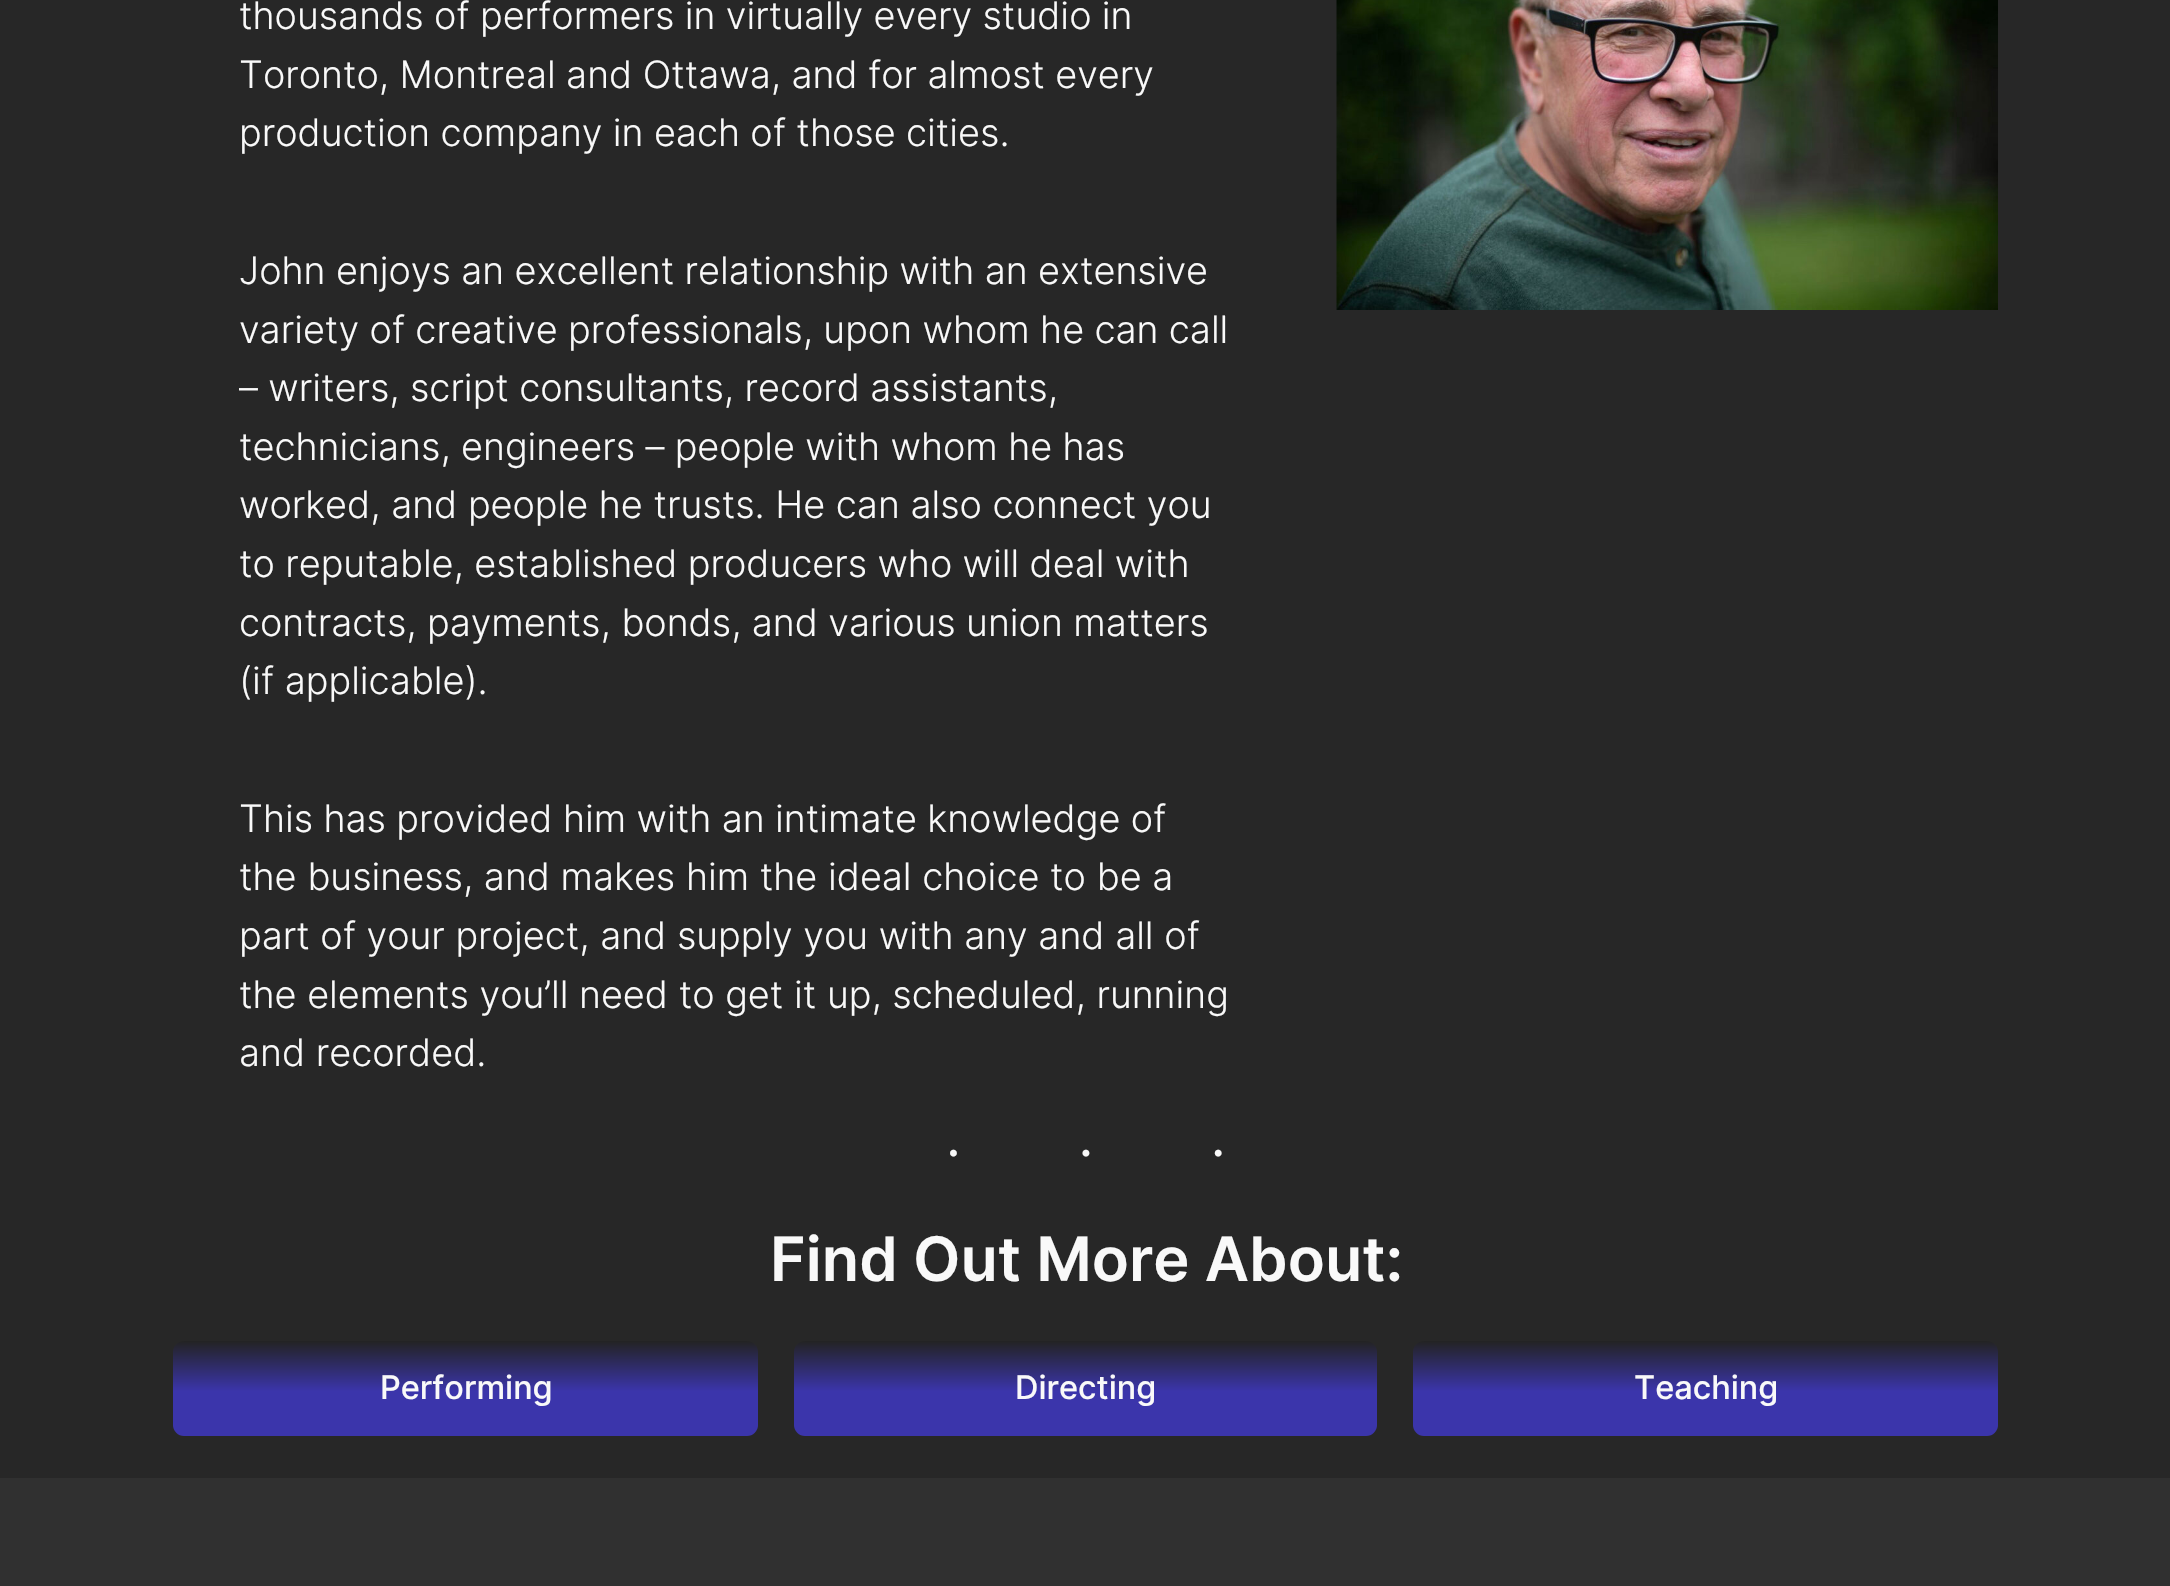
void draw(SkCanvas* canvas) {
	SkPaint paint;
	paint.setAntiAlias(true);
	auto spacedText = [&](const char* s, float x, float y, const SkFont& font, const SkPaint& ink, float letter, float word) {
		std::vector<SkGlyphID> glyphs(font.countText(s, strlen(s), SkTextEncoding::kUTF8));
		std::vector<float> xs(glyphs.size());
		font.textToGlyphs(s, strlen(s), SkTextEncoding::kUTF8, glyphs);
		font.getXPos(glyphs, xs, x);
		float extra = 0;
		for (size_t i = 0; i < glyphs.size(); i++) {
			xs[i] += extra;
			extra += letter + word * (glyphs[i] == font.unicharToGlyph(' '));
		}
		canvas->drawTextBlob(SkTextBlob::MakeFromPosHGlyphs(glyphs, xs, y, font), 0, 0, ink);
	};
	canvas->clear(0xff272727);
	SkFont f1(fontMgr->matchFamilyStyle("Inter", SkFontStyle(300, SkFontStyle::kNormal_Width, SkFontStyle::kUpright_Slant)), 37.8);
	f1.setSubpixel(true);
	paint.setColor(0xfff9f9f9);
	spacedText("thousands of performers in virtually every studio in", 239, 29, f1, paint, 0, -0.25);
	spacedText("Toronto, Montreal and Ottawa, and for almost every", 239, 88, f1, paint, 0, -0.25);
	spacedText("production company in each of those cities.", 239, 146, f1, paint, 0, -0.25);
	spacedText("John enjoys an excellent relationship with an extensive", 239, 284, f1, paint, 0, -0.25);
	spacedText("variety of creative professionals, upon whom he can call", 239, 343, f1, paint, 0, -0.25);
	spacedText("– writers, script consultants, record assistants,", 239, 401, f1, paint, 0, -0.25);
	spacedText("technicians, engineers – people with whom he has", 239, 460, f1, paint, 0, -0.25);
	canvas->drawString("worked, and people he trusts. He can also connect you", 239, 518, f1, paint);
	spacedText("to reputable, established producers who will deal with", 239, 577, f1, paint, 0, -0.25);
	spacedText("contracts, payments, bonds, and various union matters", 239, 636, f1, paint, 0, -0.25);
	canvas->drawString("(if applicable).", 239, 694, f1, paint);
	spacedText("This has provided him with an intimate knowledge of", 239, 832, f1, paint, 0, -0.25);
	canvas->drawString("the business, and makes him the ideal choice to be a", 239, 890, f1, paint);
	canvas->drawString("part of your project, and supply you with any and all of", 239, 949, f1, paint);
	canvas->drawString("the elements you’ll need to get it up, scheduled, running", 239, 1008, f1, paint);
	canvas->drawString("and recorded.", 239, 1066, f1, paint);
	canvas->drawImageRect(SkImages::DeferredFromEncodedData(SkData::MakeFromFileName("img1.png")), SkRect::MakeXYWH(1336, 0, 662, 310), SkSamplingOptions());
	SkFont f2(fontMgr->matchFamilyStyle("Liberation Serif", SkFontStyle::Normal()), 56.75);
	f2.setSubpixel(true);
	spacedText("···", 944, 1172, f2, paint, 113.5, 0);
	SkFont f3(fontMgr->matchFamilyStyle("Inter", SkFontStyle(600, SkFontStyle::kNormal_Width, SkFontStyle::kUpright_Slant)), 61.25);
	f3.setSubpixel(true);
	canvas->drawString("Find Out More About:", 770, 1281, f3, paint);
	{
		const SkColor colors[] = {0xff232323, 0xff3b35ab};
		const float stops[] = {0, 0.53};
		const SkPoint ends[] = {{466, 1341}, {466, 1436}};
		paint.setShader(SkGradientShader::MakeLinear(ends, colors, stops, 2, SkTileMode::kClamp));
		paint.setAlpha(255);
	}
	canvas->drawRoundRect(SkRect::MakeXYWH(173, 1341, 585, 95), 11, 11, paint);
	SkFont f4(fontMgr->matchFamilyStyle("Inter", SkFontStyle(500, SkFontStyle::kNormal_Width, SkFontStyle::kUpright_Slant)), 32.5);
	f4.setSubpixel(true);
	paint.setShader(nullptr);
	paint.setColor(0xfff9f9f9);
	canvas->drawString("Performing", 380, 1399, f4, paint);
	{
		const SkColor colors[] = {0xff232323, 0xff3b35ab};
		const float stops[] = {0, 0.53};
		const SkPoint ends[] = {{1086, 1341}, {1086, 1436}};
		paint.setShader(SkGradientShader::MakeLinear(ends, colors, stops, 2, SkTileMode::kClamp));
		paint.setAlpha(255);
	}
	canvas->drawRoundRect(SkRect::MakeXYWH(794, 1341, 583, 95), 11, 11, paint);
	paint.setShader(nullptr);
	paint.setColor(0xfff9f9f9);
	canvas->drawString("Directing", 1015, 1399, f4, paint);
	{
		const SkColor colors[] = {0xff232323, 0xff3b35ab};
		const float stops[] = {0, 0.53};
		const SkPoint ends[] = {{1706, 1341}, {1706, 1436}};
		paint.setShader(SkGradientShader::MakeLinear(ends, colors, stops, 2, SkTileMode::kClamp));
		paint.setAlpha(255);
	}
	canvas->drawRoundRect(SkRect::MakeXYWH(1413, 1341, 585, 95), 11, 11, paint);
	paint.setShader(nullptr);
	paint.setColor(0xfff9f9f9);
	canvas->drawString("Teaching", 1634, 1399, f4, paint);
	paint.setColor(0xff303030);
	canvas->drawRect(SkRect::MakeXYWH(0, 1478, 2170, 108), paint);
}
